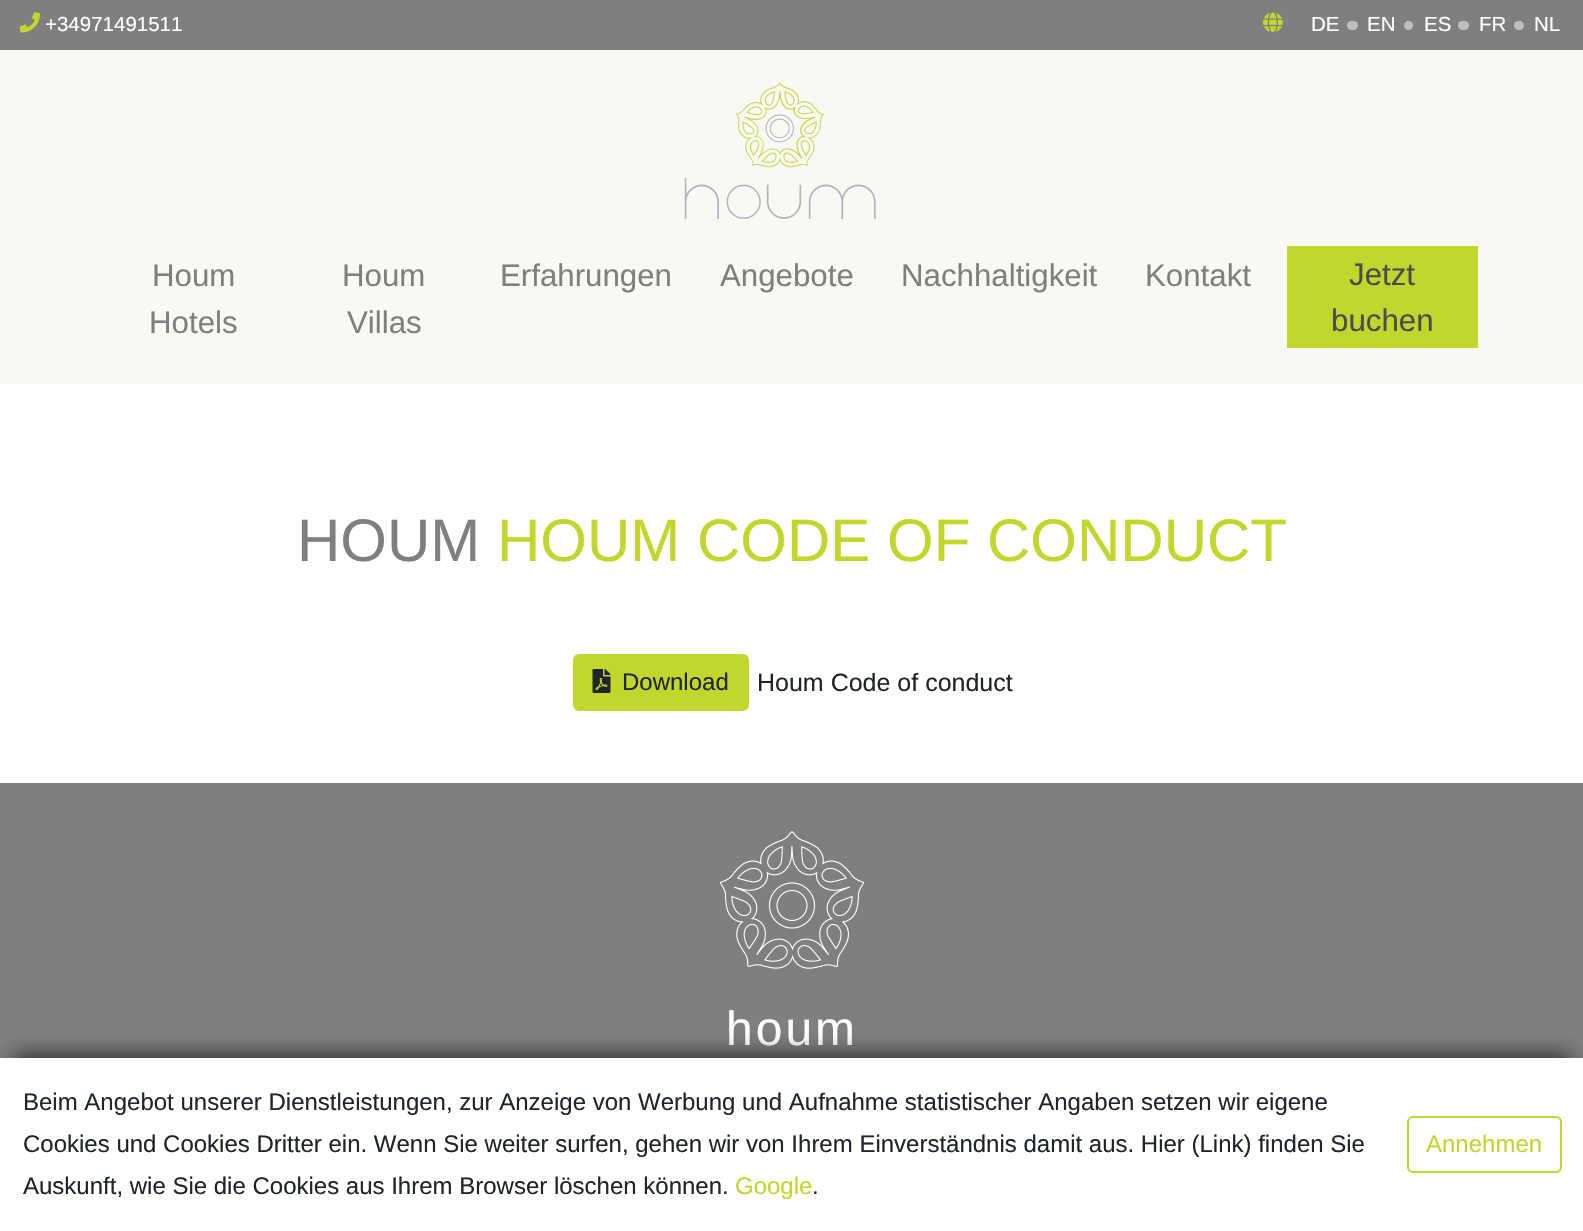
void draw(SkCanvas* canvas) {
	SkPaint paint;
	paint.setAntiAlias(true);
	auto spacedText = [&](const char* s, float x, float y, const SkFont& font, const SkPaint& ink, float letter, float word) {
		std::vector<SkGlyphID> glyphs(font.countText(s, strlen(s), SkTextEncoding::kUTF8));
		std::vector<float> xs(glyphs.size());
		font.textToGlyphs(s, strlen(s), SkTextEncoding::kUTF8, glyphs);
		font.getXPos(glyphs, xs, x);
		float extra = 0;
		for (size_t i = 0; i < glyphs.size(); i++) {
			xs[i] += extra;
			extra += letter + word * (glyphs[i] == font.unicharToGlyph(' '));
		}
		canvas->drawTextBlob(SkTextBlob::MakeFromPosHGlyphs(glyphs, xs, y, font), 0, 0, ink);
	};
	canvas->clear(0xffffffff);
	paint.setColor(0xff7f7f7f);
	canvas->drawRect(SkRect::MakeXYWH(0, 0, 1583, 50), paint);
	canvas->drawImageRect(SkImages::DeferredFromEncodedData(SkData::MakeFromFileName("img1.png")), SkRect::MakeXYWH(19, 12, 21, 21), SkSamplingOptions());
	SkFont f1(fontMgr->matchFamilyStyle("Liberation Sans", SkFontStyle::Normal()), 20.5);
	f1.setSubpixel(true);
	paint.setColor(0xffffffff);
	canvas->drawString("+34971491511", 45, 31, f1, paint);
	canvas->drawImageRect(SkImages::DeferredFromEncodedData(SkData::MakeFromFileName("img2.png")), SkRect::MakeXYWH(1263, 12, 20, 21), SkSamplingOptions());
	canvas->drawString("DE", 1311, 31, f1, paint);
	paint.setColor(0xffbfbfbf);
	canvas->drawRoundRect(SkRect::MakeXYWH(1347, 21, 11, 9), 4.5, 4.5, paint);
	paint.setColor(0xffffffff);
	canvas->drawString("EN", 1367, 31, f1, paint);
	paint.setColor(0xffbfbfbf);
	canvas->drawCircle(1408.5, 25.5, 4.5, paint);
	paint.setColor(0xffffffff);
	canvas->drawString("ES", 1424, 31, f1, paint);
	paint.setColor(0xffbfbfbf);
	canvas->drawRoundRect(SkRect::MakeXYWH(1458, 21, 11, 9), 4.5, 4.5, paint);
	paint.setColor(0xffffffff);
	canvas->drawString("FR", 1479, 31, f1, paint);
	paint.setColor(0xffbfbfbf);
	canvas->drawRoundRect(SkRect::MakeXYWH(1514, 21, 10, 9), 4.5, 4.5, paint);
	paint.setColor(0xffffffff);
	canvas->drawString("NL", 1534, 31, f1, paint);
	paint.setColor(0xfff8f8f5);
	canvas->drawRect(SkRect::MakeXYWH(0, 50, 1583, 334), paint);
	canvas->drawImageRect(SkImages::DeferredFromEncodedData(SkData::MakeFromFileName("img3.png")), SkRect::MakeXYWH(684, 81, 192, 138), SkSamplingOptions());
	SkFont f2(fontMgr->matchFamilyStyle("Liberation Sans", SkFontStyle::Normal()), 31.25);
	f2.setSubpixel(true);
	paint.setColor(0xff7f7f7f);
	canvas->drawString("Houm", 152, 286, f2, paint);
	canvas->drawString("Hotels", 149, 333, f2, paint);
	canvas->drawString("Houm", 342, 286, f2, paint);
	canvas->drawString("Villas", 347, 333, f2, paint);
	canvas->drawString("Erfahrungen", 500, 286, f2, paint);
	canvas->drawString("Angebote", 720, 286, f2, paint);
	canvas->drawString("Nachhaltigkeit", 901, 286, f2, paint);
	canvas->drawString("Kontakt", 1145, 286, f2, paint);
	paint.setColor(0xffc1d72e);
	canvas->drawRect(SkRect::MakeXYWH(1287, 246, 191, 102), paint);
	paint.setColor(0xff4c4c4c);
	canvas->drawString("Jetzt", 1349, 285, f2, paint);
	canvas->drawString("buchen", 1331, 331, f2, paint);
	SkFont f3(fontMgr->matchFamilyStyle("Liberation Sans", SkFontStyle::Normal()), 60);
	f3.setSubpixel(true);
	paint.setColor(0xff7f7f7f);
	canvas->drawString("HOUM", 297, 561, f3, paint);
	paint.setColor(0xffc1d72e);
	canvas->drawString("HOUM CODE OF CONDUCT", 497, 561, f3, paint);
	canvas->drawRoundRect(SkRect::MakeXYWH(574, 655, 174, 55), 5, 5, paint);
	paint.setStroke(true);
	paint.setStrokeWidth(2);
	canvas->drawRoundRect(SkRect::MakeXYWH(574, 655, 174, 55), 5, 5, paint);
	canvas->drawImageRect(SkImages::DeferredFromEncodedData(SkData::MakeFromFileName("img4.png")), SkRect::MakeXYWH(592, 669, 19, 24), SkSamplingOptions());
	SkFont f4(fontMgr->matchFamilyStyle("Liberation Sans", SkFontStyle::Normal()), 24);
	f4.setSubpixel(true);
	paint.setStroke(false);
	paint.setColor(0xff212529);
	canvas->drawString("Download", 622, 690, f4, paint);
	SkFont f5(fontMgr->matchFamilyStyle("Liberation Sans", SkFontStyle::Normal()), 25);
	f5.setSubpixel(true);
	canvas->drawString("Houm Code of conduct", 757, 691, f5, paint);
	paint.setColor(0xff7f7f7f);
	canvas->drawRect(SkRect::MakeXYWH(0, 783, 1583, 275), paint);
	canvas->drawImageRect(SkImages::DeferredFromEncodedData(SkData::MakeFromFileName("img5.png")), SkRect::MakeXYWH(720, 831, 144, 138), SkSamplingOptions());
	SkFont f6(fontMgr->matchFamilyStyle("Liberation Sans", SkFontStyle::Normal()), 48);
	f6.setSubpixel(true);
	paint.setColor(0xffffffff);
	spacedText("houm", 726, 1045, f6, paint, 3, 0);
	paint.setColor(0xbf000000);
	paint.setMaskFilter(SkMaskFilter::MakeBlur(kNormal_SkBlurStyle, 11));
	canvas->drawRect(SkRect::MakeXYWH(14, 1056, 1557, 147), paint);
	paint.setMaskFilter(nullptr);
	paint.setColor(0xffffffff);
	canvas->drawRect(SkRect::MakeXYWH(0, 1058, 1583, 169), paint);
	paint.setColor(0xff212529);
	canvas->drawString("Beim Angebot unserer Dienstleistungen, zur Anzeige von Werbung und Aufnahme statistischer Angaben setzen wir eigene", 23, 1110, f4, paint);
	canvas->drawString("Cookies und Cookies Dritter ein. Wenn Sie weiter surfen, gehen wir von Ihrem Einverständnis damit aus. Hier (Link) finden Sie", 23, 1152, f4, paint);
	canvas->drawString("Auskunft, wie Sie die Cookies aus Ihrem Browser löschen können.", 23, 1194, f4, paint);
	paint.setColor(0xffc1d72e);
	canvas->drawString("Google", 735, 1194, f4, paint);
	paint.setColor(0xff212529);
	canvas->drawString(".", 812, 1194, f4, paint);
	paint.setStroke(true);
	paint.setColor(0xffc1d72e);
	canvas->drawRoundRect(SkRect::MakeXYWH(1408, 1117, 153, 55), 5, 5, paint);
	paint.setStroke(false);
	canvas->drawString("Annehmen", 1426, 1152, f4, paint);
}
